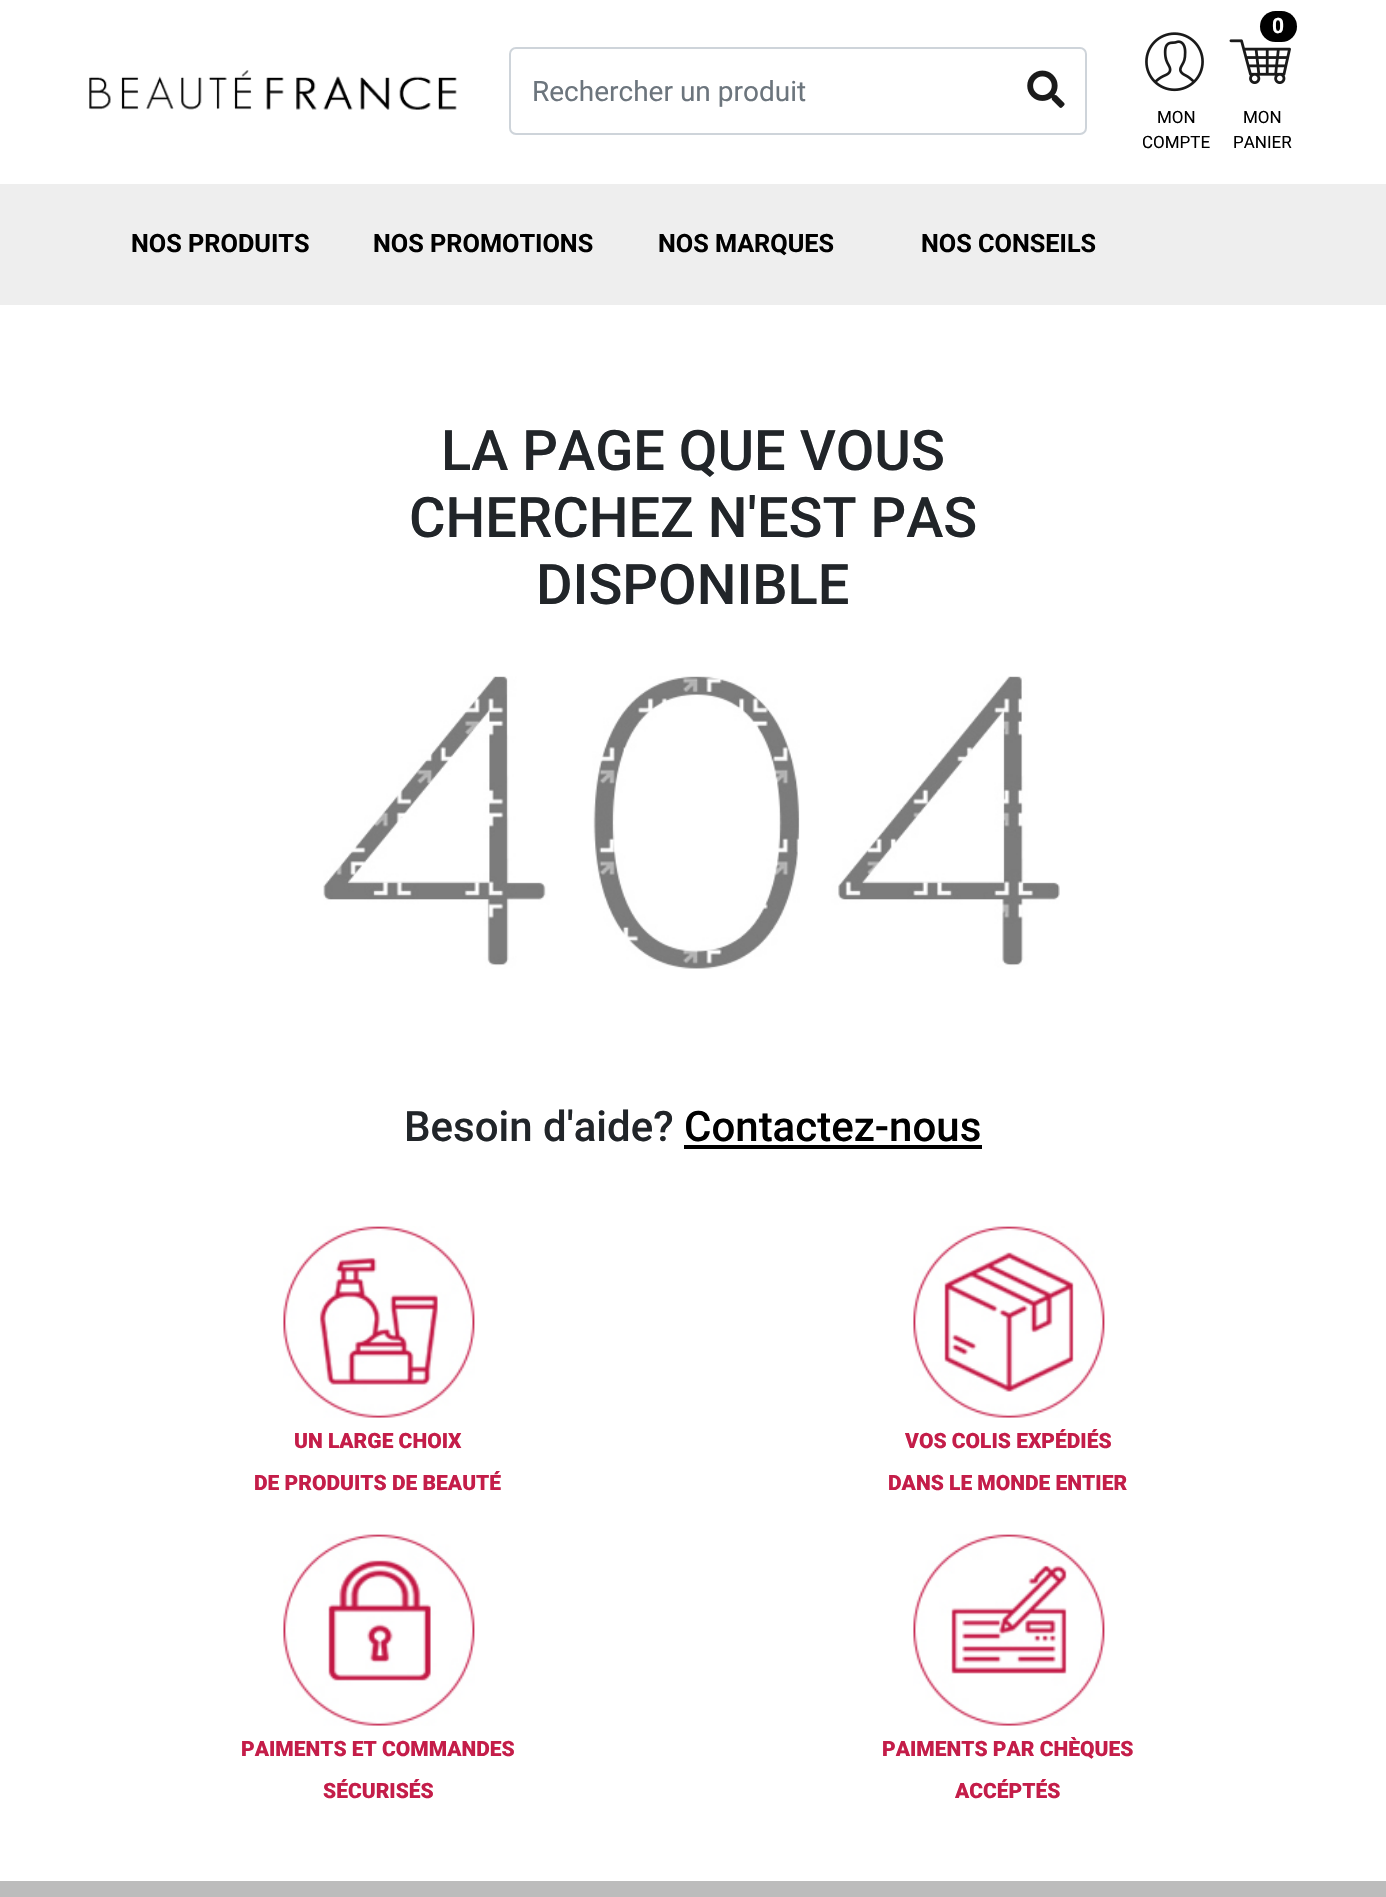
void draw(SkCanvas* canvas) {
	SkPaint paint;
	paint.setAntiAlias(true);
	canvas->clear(0xffffffff);
	canvas->drawImageRect(SkImages::DeferredFromEncodedData(SkData::MakeFromFileName("img1.png")), SkRect::MakeXYWH(89, 70, 368, 40), SkSamplingOptions());
	paint.setStroke(true);
	paint.setStrokeWidth(2);
	paint.setColor(0xffced4da);
	canvas->drawRoundRect(SkRect::MakeXYWH(510, 48, 576, 86), 6, 6, paint);
	SkFont f1(fontMgr->matchFamilyStyle("Roboto", SkFontStyle::Normal()), 28);
	f1.setSubpixel(true);
	paint.setStroke(false);
	paint.setColor(0xff6c757d);
	canvas->drawString("Rechercher un produit", 532, 101, f1, paint);
	canvas->drawImageRect(SkImages::DeferredFromEncodedData(SkData::MakeFromFileName("img2.png")), SkRect::MakeXYWH(1027, 70, 38, 38), SkSamplingOptions());
	canvas->drawImageRect(SkImages::DeferredFromEncodedData(SkData::MakeFromFileName("img3.png")), SkRect::MakeXYWH(1145, 32, 59, 60), SkSamplingOptions());
	SkFont f2(fontMgr->matchFamilyStyle("Roboto", SkFontStyle::Normal()), 17);
	f2.setSubpixel(true);
	paint.setColor(0xff000000);
	canvas->drawString("MON", 1157, 123, f2, paint);
	canvas->drawString("COMPTE", 1142, 148, f2, paint);
	canvas->drawImageRect(SkImages::DeferredFromEncodedData(SkData::MakeFromFileName("img4.png")), SkRect::MakeXYWH(1229, 39, 62, 45), SkSamplingOptions());
	canvas->drawRoundRect(SkRect::MakeXYWH(1260, 11, 37, 31), 15.5, 15.5, paint);
	SkFont f3(fontMgr->matchFamilyStyle("Roboto", SkFontStyle::Bold()), 21);
	f3.setSubpixel(true);
	paint.setColor(0xffffffff);
	canvas->drawString("0", 1272, 33, f3, paint);
	paint.setColor(0xff000000);
	canvas->drawString("MON", 1243, 123, f2, paint);
	canvas->drawString("PANIER", 1233, 148, f2, paint);
	paint.setColor(0xffeeeeee);
	canvas->drawRect(SkRect::MakeXYWH(0, 184, 1386, 121), paint);
	SkFont f4(fontMgr->matchFamilyStyle("Roboto", SkFontStyle::Bold()), 25.25);
	f4.setSubpixel(true);
	paint.setColor(0xff000000);
	canvas->drawString("NOS PRODUITS", 131, 252, f4, paint);
	canvas->drawString("NOS PROMOTIONS", 373, 252, f4, paint);
	canvas->drawString("NOS MARQUES", 658, 252, f4, paint);
	canvas->drawString("NOS CONSEILS", 921, 252, f4, paint);
	SkFont f5(fontMgr->matchFamilyStyle("Roboto", SkFontStyle(500, SkFontStyle::kNormal_Width, SkFontStyle::kUpright_Slant)), 56);
	f5.setSubpixel(true);
	paint.setColor(0xff212529);
	canvas->drawString("LA PAGE QUE VOUS", 441, 470, f5, paint);
	canvas->drawString("CHERCHEZ N'EST PAS", 409, 537, f5, paint);
	canvas->drawString("DISPONIBLE", 536, 604, f5, paint);
	canvas->drawImageRect(SkImages::DeferredFromEncodedData(SkData::MakeFromFileName("img5.png")), SkRect::MakeXYWH(323, 676, 737, 293), SkSamplingOptions());
	SkFont f6(fontMgr->matchFamilyStyle("Roboto", SkFontStyle(500, SkFontStyle::kNormal_Width, SkFontStyle::kUpright_Slant)), 42);
	f6.setSubpixel(true);
	canvas->drawString("Besoin d'aide?", 404, 1141, f6, paint);
	paint.setColor(0xff000000);
	canvas->drawString("Contactez-nous", 684, 1141, f6, paint);
	canvas->drawRect(SkRect::MakeXYWH(684, 1145, 298, 4), paint);
	canvas->drawImageRect(SkImages::DeferredFromEncodedData(SkData::MakeFromFileName("img6.png")), SkRect::MakeXYWH(283, 1226, 192, 192), SkSamplingOptions());
	SkFont f7(fontMgr->matchFamilyStyle("Roboto", SkFontStyle(900, SkFontStyle::kNormal_Width, SkFontStyle::kUpright_Slant)), 21);
	f7.setSubpixel(true);
	paint.setColor(0xffc41d49);
	canvas->drawString("UN LARGE CHOIX", 294, 1448, f7, paint);
	canvas->drawString("DE PRODUITS DE BEAUTÉ", 254, 1490, f7, paint);
	canvas->drawImageRect(SkImages::DeferredFromEncodedData(SkData::MakeFromFileName("img7.png")), SkRect::MakeXYWH(913, 1226, 192, 192), SkSamplingOptions());
	canvas->drawString("VOS COLIS EXPÉDIÉS", 905, 1448, f7, paint);
	canvas->drawString("DANS LE MONDE ENTIER", 888, 1490, f7, paint);
	canvas->drawImageRect(SkImages::DeferredFromEncodedData(SkData::MakeFromFileName("img8.png")), SkRect::MakeXYWH(283, 1534, 192, 192), SkSamplingOptions());
	canvas->drawString("PAIMENTS ET COMMANDES", 241, 1756, f7, paint);
	canvas->drawString("SÉCURISÉS", 323, 1798, f7, paint);
	canvas->drawImageRect(SkImages::DeferredFromEncodedData(SkData::MakeFromFileName("img9.png")), SkRect::MakeXYWH(913, 1534, 192, 192), SkSamplingOptions());
	canvas->drawString("PAIMENTS PAR CHÈQUES", 882, 1756, f7, paint);
	canvas->drawString("ACCÉPTÉS", 955, 1798, f7, paint);
	paint.setColor(0xffbcbcbc);
	canvas->drawRect(SkRect::MakeXYWH(0, 1881, 1386, 16), paint);
}
